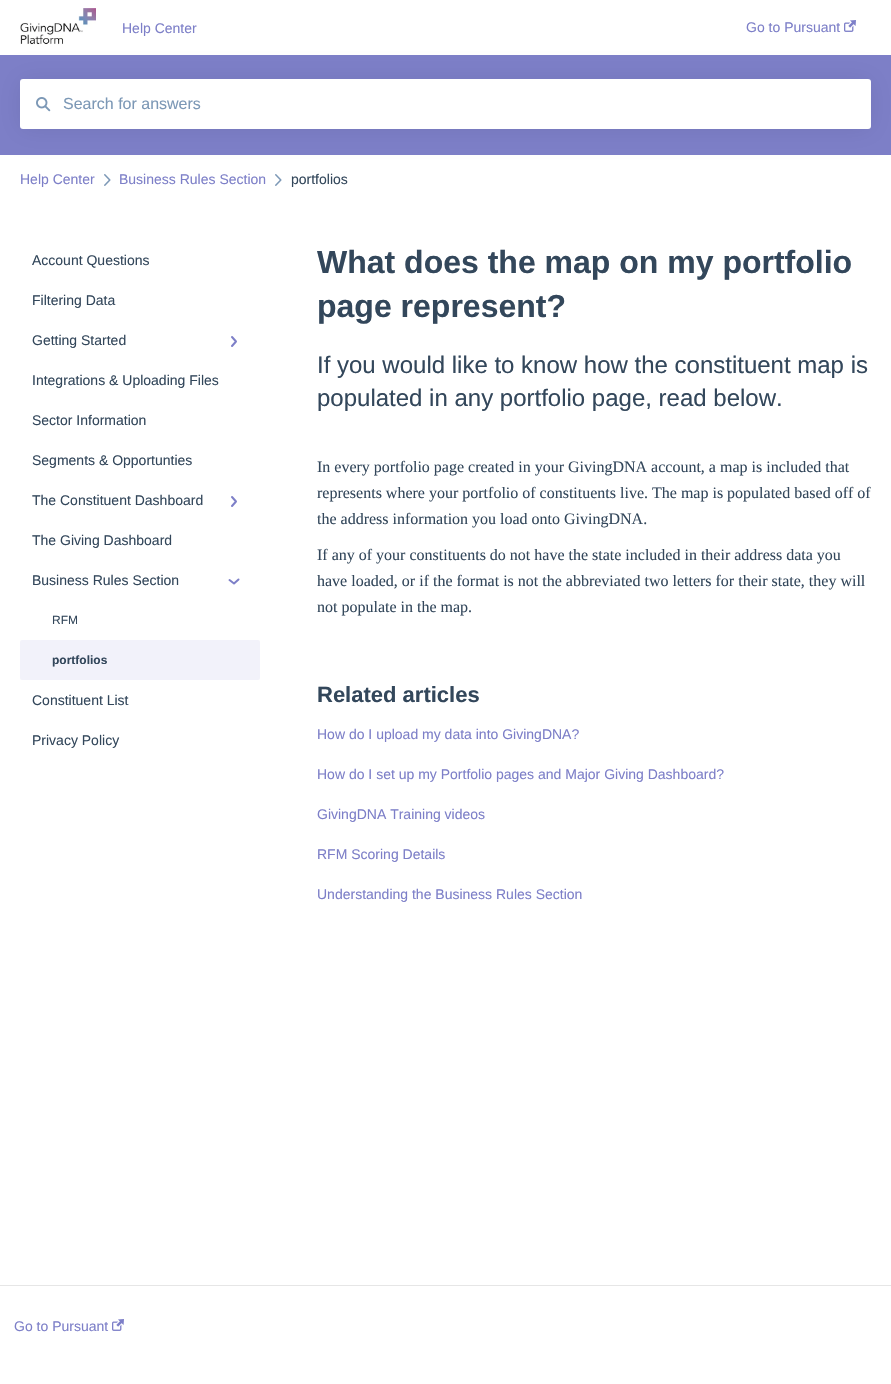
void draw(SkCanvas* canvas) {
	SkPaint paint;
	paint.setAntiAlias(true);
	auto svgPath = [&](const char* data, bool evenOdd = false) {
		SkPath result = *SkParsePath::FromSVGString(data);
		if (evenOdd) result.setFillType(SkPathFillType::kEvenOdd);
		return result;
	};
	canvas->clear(0xffffffff);
	paint.setColor(0xff7d7fc8);
	canvas->drawRect(SkRect::MakeXYWH(0, 55, 891, 100), paint);
	paint.setColor(0x14000000);
	paint.setMaskFilter(SkMaskFilter::MakeBlur(kNormal_SkBlurStyle, 12));
	canvas->drawRoundRect(SkRect::MakeXYWH(20, 80, 851, 50), 3, 3, paint);
	paint.setMaskFilter(nullptr);
	canvas->drawImageRect(SkImages::DeferredFromEncodedData(SkData::MakeFromFileName("img1.png")), SkRect::MakeXYWH(20, 8, 76, 37), SkSamplingOptions());
	SkFont f1(fontMgr->matchFamilyStyle("Liberation Sans", SkFontStyle::Normal()), 14);
	f1.setSubpixel(true);
	paint.setColor(0xff7d7fc8);
	canvas->drawString("Help Center", 122, 33, f1, paint);
	canvas->drawString("Go to Pursuant", 746, 32, f1, paint);
	canvas->drawImageRect(SkImages::DeferredFromEncodedData(SkData::MakeFromFileName("img2.png")), SkRect::MakeXYWH(844, 20, 12, 12), SkSamplingOptions());
	paint.setColor(0xffffffff);
	canvas->drawRoundRect(SkRect::MakeXYWH(20, 79, 851, 50), 3, 3, paint);
	canvas->drawImageRect(SkImages::DeferredFromEncodedData(SkData::MakeFromFileName("img3.png")), SkRect::MakeXYWH(36, 97, 15, 15), SkSamplingOptions());
	SkFont f2(fontMgr->matchFamilyStyle("Liberation Sans", SkFontStyle::Normal()), 16);
	f2.setSubpixel(true);
	paint.setColor(0xff7c98b6);
	canvas->drawString("Search for answers", 63, 109, f2, paint);
	paint.setColor(0xff7d7fc8);
	canvas->drawString("Help Center", 20, 184, f1, paint);
	canvas->drawImageRect(SkImages::DeferredFromEncodedData(SkData::MakeFromFileName("img4.png")), SkRect::MakeXYWH(104, 174, 7, 12), SkSamplingOptions());
	canvas->drawString("Business Rules Section", 119, 184, f1, paint);
	canvas->drawImageRect(SkImages::DeferredFromEncodedData(SkData::MakeFromFileName("img4.png")), SkRect::MakeXYWH(275, 174, 7, 12), SkSamplingOptions());
	paint.setColor(0xff33475b);
	canvas->drawString("portfolios", 291, 184, f1, paint);
	canvas->drawString("Account Questions", 32, 265, f1, paint);
	canvas->drawString("Filtering Data", 32, 305, f1, paint);
	canvas->drawString("Getting Started", 32, 345, f1, paint);
	paint.setStroke(true);
	paint.setStrokeWidth(2);
	paint.setStrokeCap(SkPaint::kRound_Cap);
	paint.setStrokeJoin(SkPaint::kRound_Join);
	paint.setColor(0xff7d7fc8);
	canvas->drawPath(svgPath("M232 337L236 341.5L232 346"), paint);
	paint.setStroke(false);
	paint.setColor(0xff33475b);
	canvas->drawString("Integrations & Uploading Files", 32, 385, f1, paint);
	canvas->drawString("Sector Information", 32, 425, f1, paint);
	canvas->drawString("Segments & Opportunties", 32, 465, f1, paint);
	canvas->drawString("The Constituent Dashboard", 32, 505, f1, paint);
	paint.setStroke(true);
	paint.setColor(0xff7d7fc8);
	canvas->drawPath(svgPath("M232 497L236 501.5L232 506"), paint);
	paint.setStroke(false);
	paint.setColor(0xff33475b);
	canvas->drawString("The Giving Dashboard", 32, 545, f1, paint);
	canvas->drawString("Business Rules Section", 32, 585, f1, paint);
	paint.setStroke(true);
	paint.setColor(0xff7d7fc8);
	canvas->drawPath(svgPath("M238.5 579.5L234 583.5L229.5 580"), paint);
	SkFont f3(fontMgr->matchFamilyStyle("Liberation Sans", SkFontStyle::Normal()), 12);
	f3.setSubpixel(true);
	paint.setStroke(false);
	paint.setColor(0xff33475b);
	canvas->drawString("RFM", 52, 624, f3, paint);
	paint.setColor(0xfff2f2fa);
	canvas->drawRoundRect(SkRect::MakeXYWH(20, 640, 240, 40), 2, 2, paint);
	SkFont f4(fontMgr->matchFamilyStyle("Liberation Sans", SkFontStyle::Bold()), 12);
	f4.setSubpixel(true);
	paint.setColor(0xff33475b);
	canvas->drawString("portfolios", 52, 664, f4, paint);
	canvas->drawString("Constituent List", 32, 705, f1, paint);
	canvas->drawString("Privacy Policy", 32, 745, f1, paint);
	SkFont f5(fontMgr->matchFamilyStyle("Liberation Sans", SkFontStyle::Bold()), 32);
	f5.setSubpixel(true);
	canvas->drawString("What does the map on my portfolio", 317, 273, f5, paint);
	canvas->drawString("page represent?", 317, 317, f5, paint);
	SkFont f6(fontMgr->matchFamilyStyle("Liberation Sans", SkFontStyle::Normal()), 24);
	f6.setSubpixel(true);
	canvas->drawString("If you would like to know how the constituent map is", 317, 373, f6, paint);
	canvas->drawString("populated in any portfolio page, read below.", 317, 406, f6, paint);
	SkFont f7(fontMgr->matchFamilyStyle("Liberation Serif", SkFontStyle::Normal()), 16);
	f7.setSubpixel(true);
	canvas->drawString("In every portfolio page created in your GivingDNA account, a map is included that", 317, 472, f7, paint);
	canvas->drawString("represents where your portfolio of constituents live. The map is populated based off of", 317, 498, f7, paint);
	canvas->drawString("the address information you load onto GivingDNA.", 317, 524, f7, paint);
	canvas->drawString("If any of your constituents do not have the state included in their address data you", 317, 560, f7, paint);
	canvas->drawString("have loaded, or if the format is not the abbreviated two letters for their state, they will", 317, 586, f7, paint);
	canvas->drawString("not populate in the map.", 317, 612, f7, paint);
	SkFont f8(fontMgr->matchFamilyStyle("Liberation Sans", SkFontStyle::Bold()), 22);
	f8.setSubpixel(true);
	canvas->drawString("Related articles", 317, 702, f8, paint);
	paint.setColor(0xff7d7fc8);
	canvas->drawString("How do I upload my data into GivingDNA?", 317, 739, f1, paint);
	canvas->drawString("How do I set up my Portfolio pages and Major Giving Dashboard?", 317, 779, f1, paint);
	canvas->drawString("GivingDNA Training videos", 317, 819, f1, paint);
	canvas->drawString("RFM Scoring Details", 317, 859, f1, paint);
	canvas->drawString("Understanding the Business Rules Section", 317, 899, f1, paint);
	paint.setColor(0xffe6e6e6);
	canvas->drawRect(SkRect::MakeXYWH(0, 1285, 891, 1), paint);
	paint.setColor(0xff7d7fc8);
	canvas->drawString("Go to Pursuant", 14, 1331, f1, paint);
	canvas->drawImageRect(SkImages::DeferredFromEncodedData(SkData::MakeFromFileName("img2.png")), SkRect::MakeXYWH(112, 1319, 12, 12), SkSamplingOptions());
}
